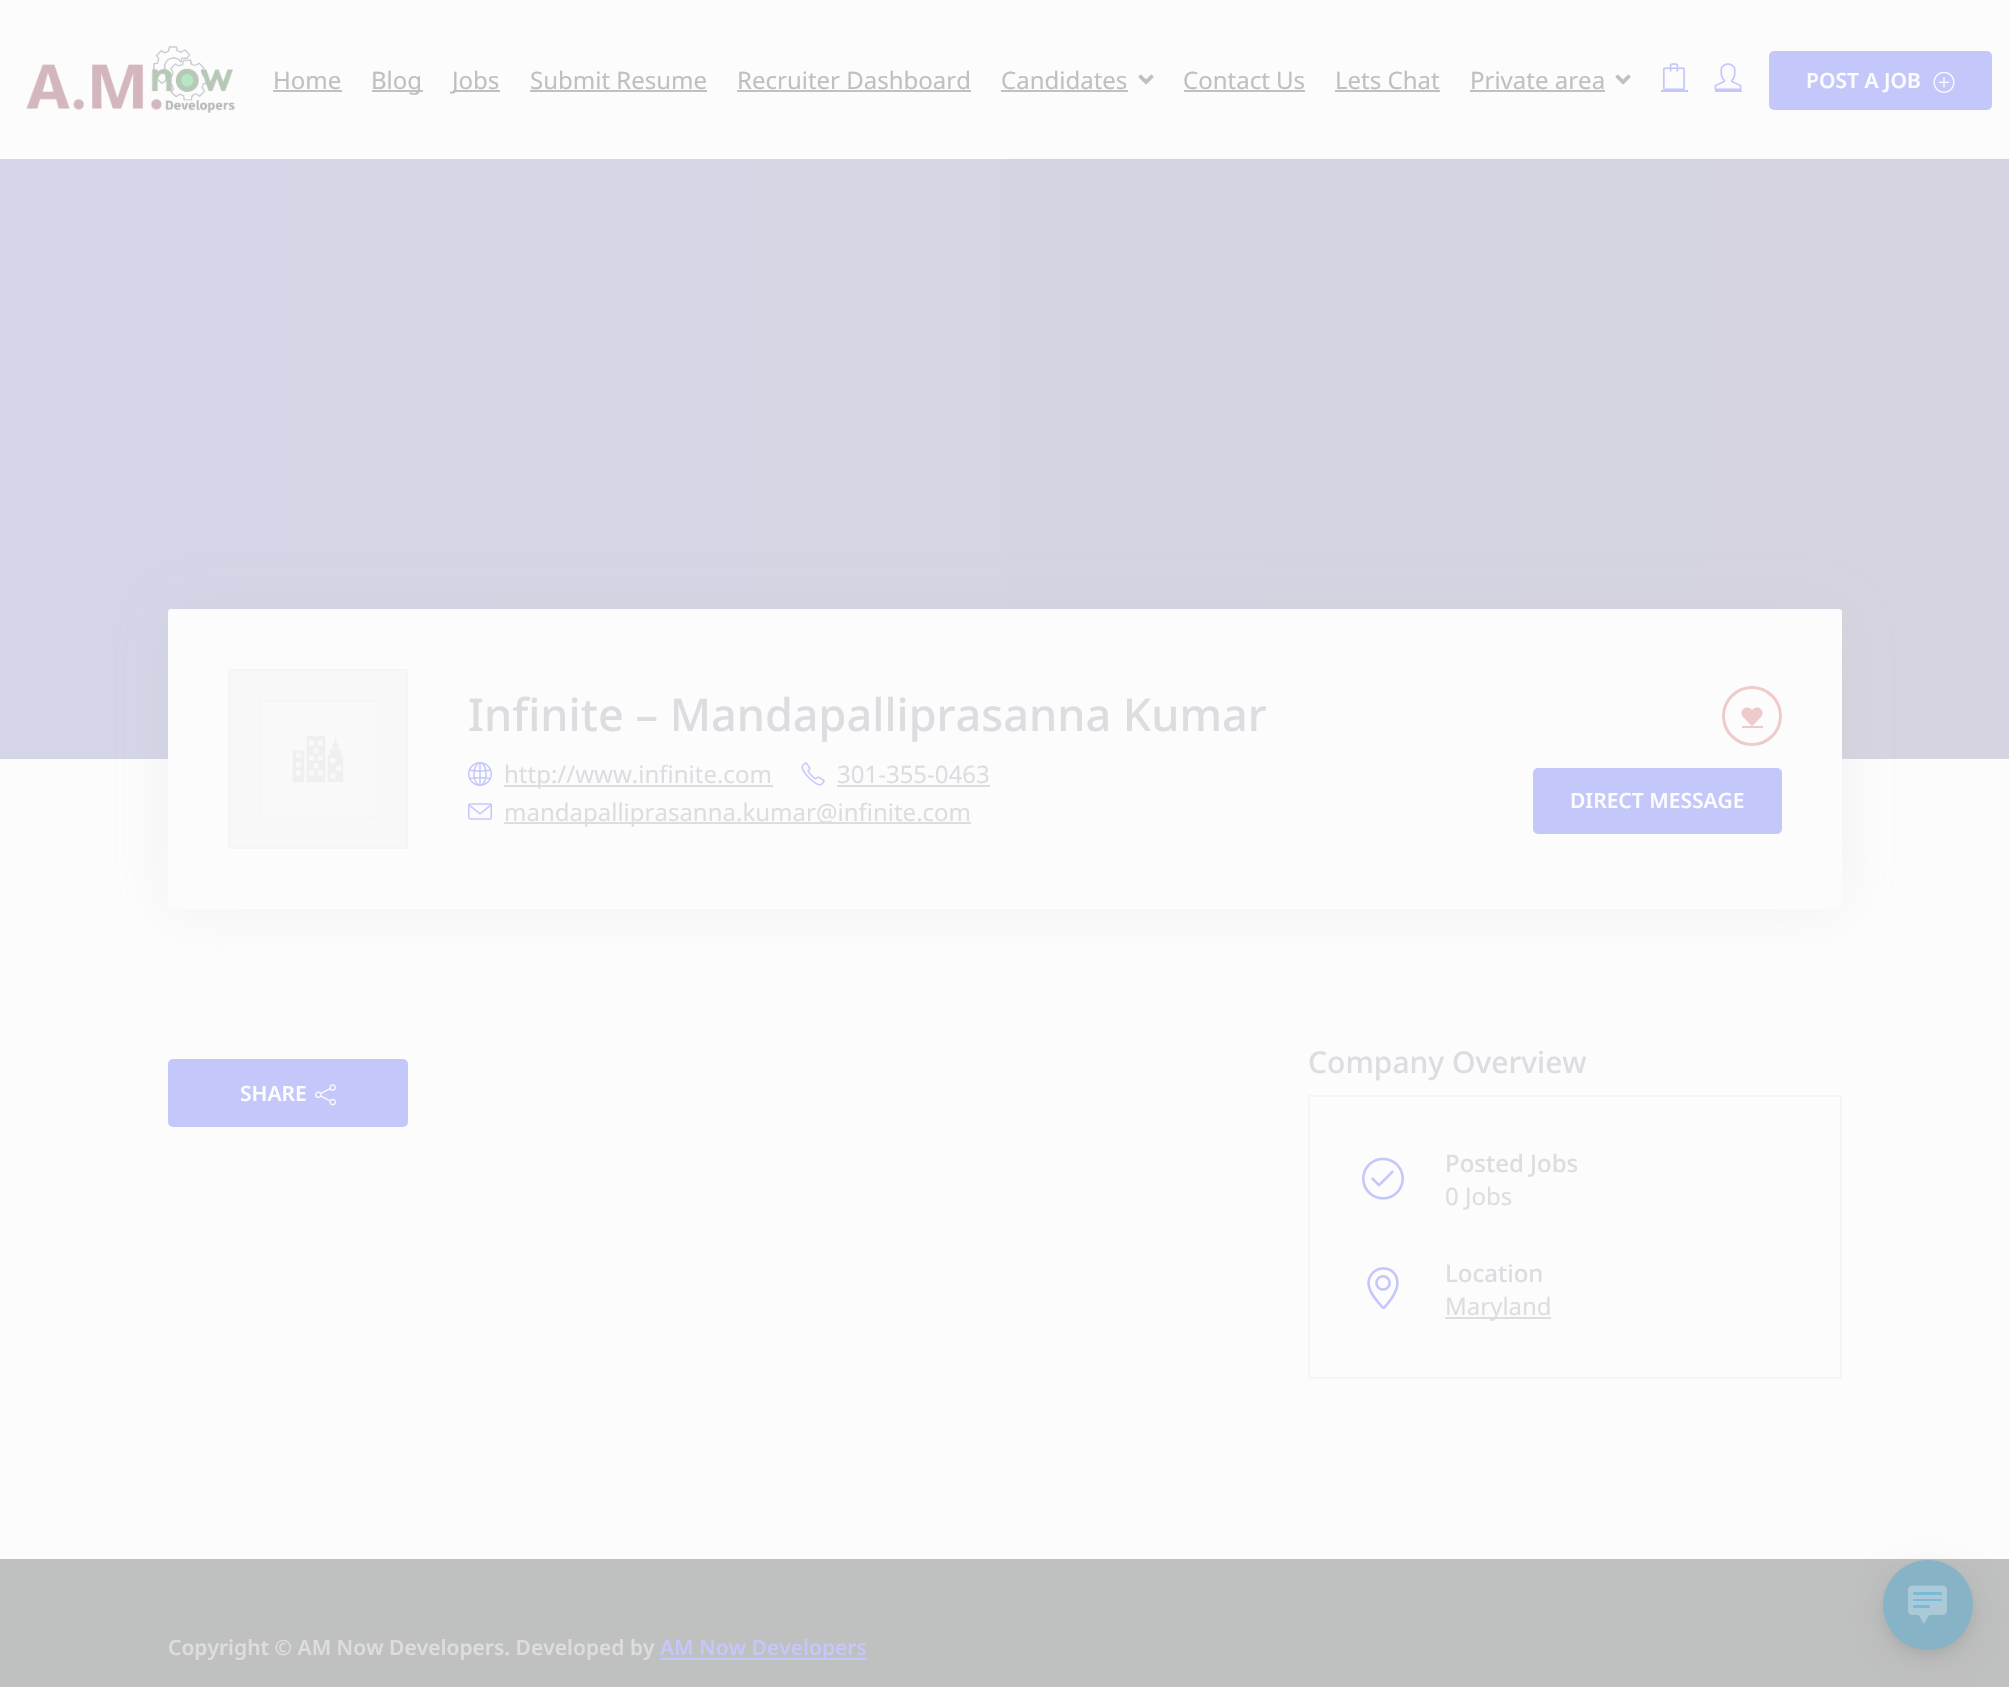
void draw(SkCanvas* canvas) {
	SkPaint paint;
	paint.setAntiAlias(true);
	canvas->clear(0xfffcfcfc);
	canvas->drawImageRect(SkImages::DeferredFromEncodedData(SkData::MakeFromFileName("img1.png")), SkRect::MakeXYWH(26, 46, 209, 67), SkSamplingOptions());
	SkFont f1(fontMgr->matchFamilyStyle("Noto Sans", SkFontStyle::Normal()), 24);
	f1.setSubpixel(true);
	paint.setColor(0xffc0c0c0);
	canvas->drawString("Home", 273, 89, f1, paint);
	canvas->drawRect(SkRect::MakeXYWH(273, 90, 69, 2), paint);
	canvas->drawRect(SkRect::MakeXYWH(372, 90, 51, 2), paint);
	canvas->drawString("Blog", 371, 89, f1, paint);
	canvas->drawRect(SkRect::MakeXYWH(453, 90, 47, 2), paint);
	canvas->drawString("Jobs", 452, 89, f1, paint);
	canvas->drawString("Submit Resume", 530, 89, f1, paint);
	canvas->drawRect(SkRect::MakeXYWH(530, 90, 177, 2), paint);
	canvas->drawString("Recruiter Dashboard", 737, 89, f1, paint);
	canvas->drawRect(SkRect::MakeXYWH(737, 90, 234, 2), paint);
	canvas->drawString("Candidates", 1001, 89, f1, paint);
	canvas->drawRect(SkRect::MakeXYWH(1001, 90, 127, 2), paint);
	canvas->drawImageRect(SkImages::DeferredFromEncodedData(SkData::MakeFromFileName("img2.png")), SkRect::MakeXYWH(1138, 74, 16, 11), SkSamplingOptions());
	canvas->drawString("Contact Us", 1183, 89, f1, paint);
	canvas->drawRect(SkRect::MakeXYWH(1184, 90, 121, 2), paint);
	canvas->drawString("Lets Chat", 1335, 89, f1, paint);
	canvas->drawRect(SkRect::MakeXYWH(1335, 90, 105, 2), paint);
	canvas->drawString("Private area", 1470, 89, f1, paint);
	canvas->drawRect(SkRect::MakeXYWH(1470, 90, 135, 2), paint);
	canvas->drawImageRect(SkImages::DeferredFromEncodedData(SkData::MakeFromFileName("img2.png")), SkRect::MakeXYWH(1615, 74, 16, 11), SkSamplingOptions());
	canvas->drawImageRect(SkImages::DeferredFromEncodedData(SkData::MakeFromFileName("img3.png")), SkRect::MakeXYWH(1663, 63, 22, 27), SkSamplingOptions());
	paint.setColor(0xffc4c7fa);
	canvas->drawRect(SkRect::MakeXYWH(1661, 90, 27, 2), paint);
	canvas->drawImageRect(SkImages::DeferredFromEncodedData(SkData::MakeFromFileName("img4.png")), SkRect::MakeXYWH(1714, 63, 28, 27), SkSamplingOptions());
	canvas->drawRect(SkRect::MakeXYWH(1715, 90, 27, 2), paint);
	canvas->drawRoundRect(SkRect::MakeXYWH(1769, 51, 223, 59), 5, 5, paint);
	SkFont f2(fontMgr->matchFamilyStyle("Noto Sans", SkFontStyle(600, SkFontStyle::kNormal_Width, SkFontStyle::kUpright_Slant)), 21);
	f2.setSubpixel(true);
	paint.setColor(0xfffcfcfc);
	canvas->drawString("POST A JOB", 1806, 88, f2, paint);
	canvas->drawImageRect(SkImages::DeferredFromEncodedData(SkData::MakeFromFileName("img5.png")), SkRect::MakeXYWH(1933, 71, 22, 22), SkSamplingOptions());
	{
		const SkColor colors[] = {0xffd4d5e9, 0xffd6d4de};
		const float stops[] = {0, 1};
		const SkPoint ends[] = {{-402, 459}, {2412, 459}};
		paint.setShader(SkGradientShader::MakeLinear(ends, colors, stops, 2, SkTileMode::kClamp));
		paint.setAlpha(255);
	}
	canvas->drawRect(SkRect::MakeXYWH(0, 159, 2009, 600), paint);
	paint.setShader(nullptr);
	paint.setColor(0x26b7b7b7);
	paint.setMaskFilter(SkMaskFilter::MakeBlur(kNormal_SkBlurStyle, 30));
	canvas->drawRoundRect(SkRect::MakeXYWH(168, 609, 1674, 300), 3, 3, paint);
	paint.setMaskFilter(nullptr);
	paint.setColor(0xfffcfcfc);
	canvas->drawRoundRect(SkRect::MakeXYWH(168, 609, 1674, 300), 3, 3, paint);
	paint.setColor(0xfff8f8f8);
	canvas->drawRoundRect(SkRect::MakeXYWH(229, 670, 178, 178), 2, 2, paint);
	paint.setStroke(true);
	paint.setStrokeWidth(2);
	paint.setColor(0xfff5f5f5);
	canvas->drawRoundRect(SkRect::MakeXYWH(229, 670, 178, 178), 2, 2, paint);
	canvas->drawImageRect(SkImages::DeferredFromEncodedData(SkData::MakeFromFileName("img6.png")), SkRect::MakeXYWH(259, 700, 118, 118), SkSamplingOptions());
	SkFont f3(fontMgr->matchFamilyStyle("Noto Sans", SkFontStyle(500, SkFontStyle::kNormal_Width, SkFontStyle::kUpright_Slant)), 45);
	f3.setSubpixel(true);
	paint.setStroke(false);
	paint.setColor(0xffdfdce1);
	canvas->drawString("Infinite – Mandapalliprasanna Kumar", 468, 731, f3, paint);
	canvas->drawImageRect(SkImages::DeferredFromEncodedData(SkData::MakeFromFileName("img7.png")), SkRect::MakeXYWH(468, 762, 24, 24), SkSamplingOptions());
	canvas->drawRect(SkRect::MakeXYWH(504, 785, 269, 2), paint);
	canvas->drawString("http://www.infinite.com", 504, 783, f1, paint);
	canvas->drawImageRect(SkImages::DeferredFromEncodedData(SkData::MakeFromFileName("img8.png")), SkRect::MakeXYWH(801, 762, 24, 24), SkSamplingOptions());
	canvas->drawString("301-355-0463", 837, 783, f1, paint);
	canvas->drawRect(SkRect::MakeXYWH(837, 785, 153, 2), paint);
	canvas->drawImageRect(SkImages::DeferredFromEncodedData(SkData::MakeFromFileName("img9.png")), SkRect::MakeXYWH(468, 803, 25, 17), SkSamplingOptions());
	canvas->drawRect(SkRect::MakeXYWH(504, 822, 467, 2), paint);
	canvas->drawString("mandapalliprasanna.kumar@infinite.com", 504, 821, f1, paint);
	paint.setStroke(true);
	paint.setStrokeWidth(3);
	paint.setColor(0xffefcaca);
	canvas->drawCircle(1752, 716, 28.5, paint);
	canvas->drawImageRect(SkImages::DeferredFromEncodedData(SkData::MakeFromFileName("img10.png")), SkRect::MakeXYWH(1741, 707, 22, 19), SkSamplingOptions());
	paint.setStroke(false);
	canvas->drawRect(SkRect::MakeXYWH(1742, 726, 21, 2), paint);
	paint.setColor(0xffc4c7fa);
	canvas->drawRoundRect(SkRect::MakeXYWH(1533, 768, 249, 66), 5, 5, paint);
	paint.setColor(0xfffcfcfc);
	canvas->drawString("DIRECT MESSAGE", 1570, 808, f2, paint);
	paint.setColor(0xffc4c7fa);
	canvas->drawRoundRect(SkRect::MakeXYWH(168, 1059, 240, 68), 5, 5, paint);
	paint.setColor(0xfffcfcfc);
	canvas->drawString("SHARE", 240, 1101, f2, paint);
	canvas->drawImageRect(SkImages::DeferredFromEncodedData(SkData::MakeFromFileName("img11.png")), SkRect::MakeXYWH(315, 1084, 21, 22), SkSamplingOptions());
	SkFont f4(fontMgr->matchFamilyStyle("Noto Sans", SkFontStyle(500, SkFontStyle::kNormal_Width, SkFontStyle::kUpright_Slant)), 30);
	f4.setSubpixel(true);
	paint.setColor(0xffdfdce1);
	canvas->drawString("Company Overview", 1308, 1073, f4, paint);
	paint.setStroke(true);
	paint.setStrokeWidth(2);
	paint.setColor(0xfff5f5f5);
	canvas->drawRect(SkRect::MakeXYWH(1309, 1096, 532, 282), paint);
	canvas->drawImageRect(SkImages::DeferredFromEncodedData(SkData::MakeFromFileName("img12.png")), SkRect::MakeXYWH(1362, 1157, 42, 43), SkSamplingOptions());
	SkFont f5(fontMgr->matchFamilyStyle("Noto Sans", SkFontStyle(500, SkFontStyle::kNormal_Width, SkFontStyle::kUpright_Slant)), 24);
	f5.setSubpixel(true);
	paint.setStroke(false);
	paint.setColor(0xffdfdce1);
	canvas->drawString("Posted Jobs", 1445, 1172, f5, paint);
	canvas->drawString("0 Jobs", 1445, 1205, f1, paint);
	canvas->drawImageRect(SkImages::DeferredFromEncodedData(SkData::MakeFromFileName("img13.png")), SkRect::MakeXYWH(1367, 1267, 32, 43), SkSamplingOptions());
	canvas->drawString("Location", 1445, 1282, f5, paint);
	canvas->drawRect(SkRect::MakeXYWH(1445, 1317, 106, 2), paint);
	canvas->drawString("Maryland", 1445, 1315, f1, paint);
	paint.setColor(0xffbfc0c0);
	canvas->drawRect(SkRect::MakeXYWH(0, 1559, 2009, 128), paint);
	paint.setColor(0xffdfdce1);
	canvas->drawString("Copyright © AM Now Developers. Developed by", 168, 1655, f2, paint);
	paint.setColor(0xffc4c7fa);
	canvas->drawRect(SkRect::MakeXYWH(660, 1658, 207, 2), paint);
	canvas->drawString("AM Now Developers", 660, 1655, f2, paint);
	paint.setColor(0x0f000000);
	paint.setMaskFilter(SkMaskFilter::MakeBlur(kNormal_SkBlurStyle, 15));
	canvas->drawRoundRect(SkRect::MakeXYWH(1883, 1569, 90, 90), 45, 45, paint);
	paint.setMaskFilter(nullptr);
	paint.setMaskFilter(SkMaskFilter::MakeBlur(kNormal_SkBlurStyle, 6));
	canvas->drawRoundRect(SkRect::MakeXYWH(1883, 1566, 90, 90), 45, 45, paint);
	paint.setMaskFilter(nullptr);
	paint.setColor(0xff87b3c6);
	canvas->drawCircle(1928, 1605, 45, paint);
	canvas->drawImageRect(SkImages::DeferredFromEncodedData(SkData::MakeFromFileName("img14.png")), SkRect::MakeXYWH(1908, 1585, 39, 39), SkSamplingOptions());
}
